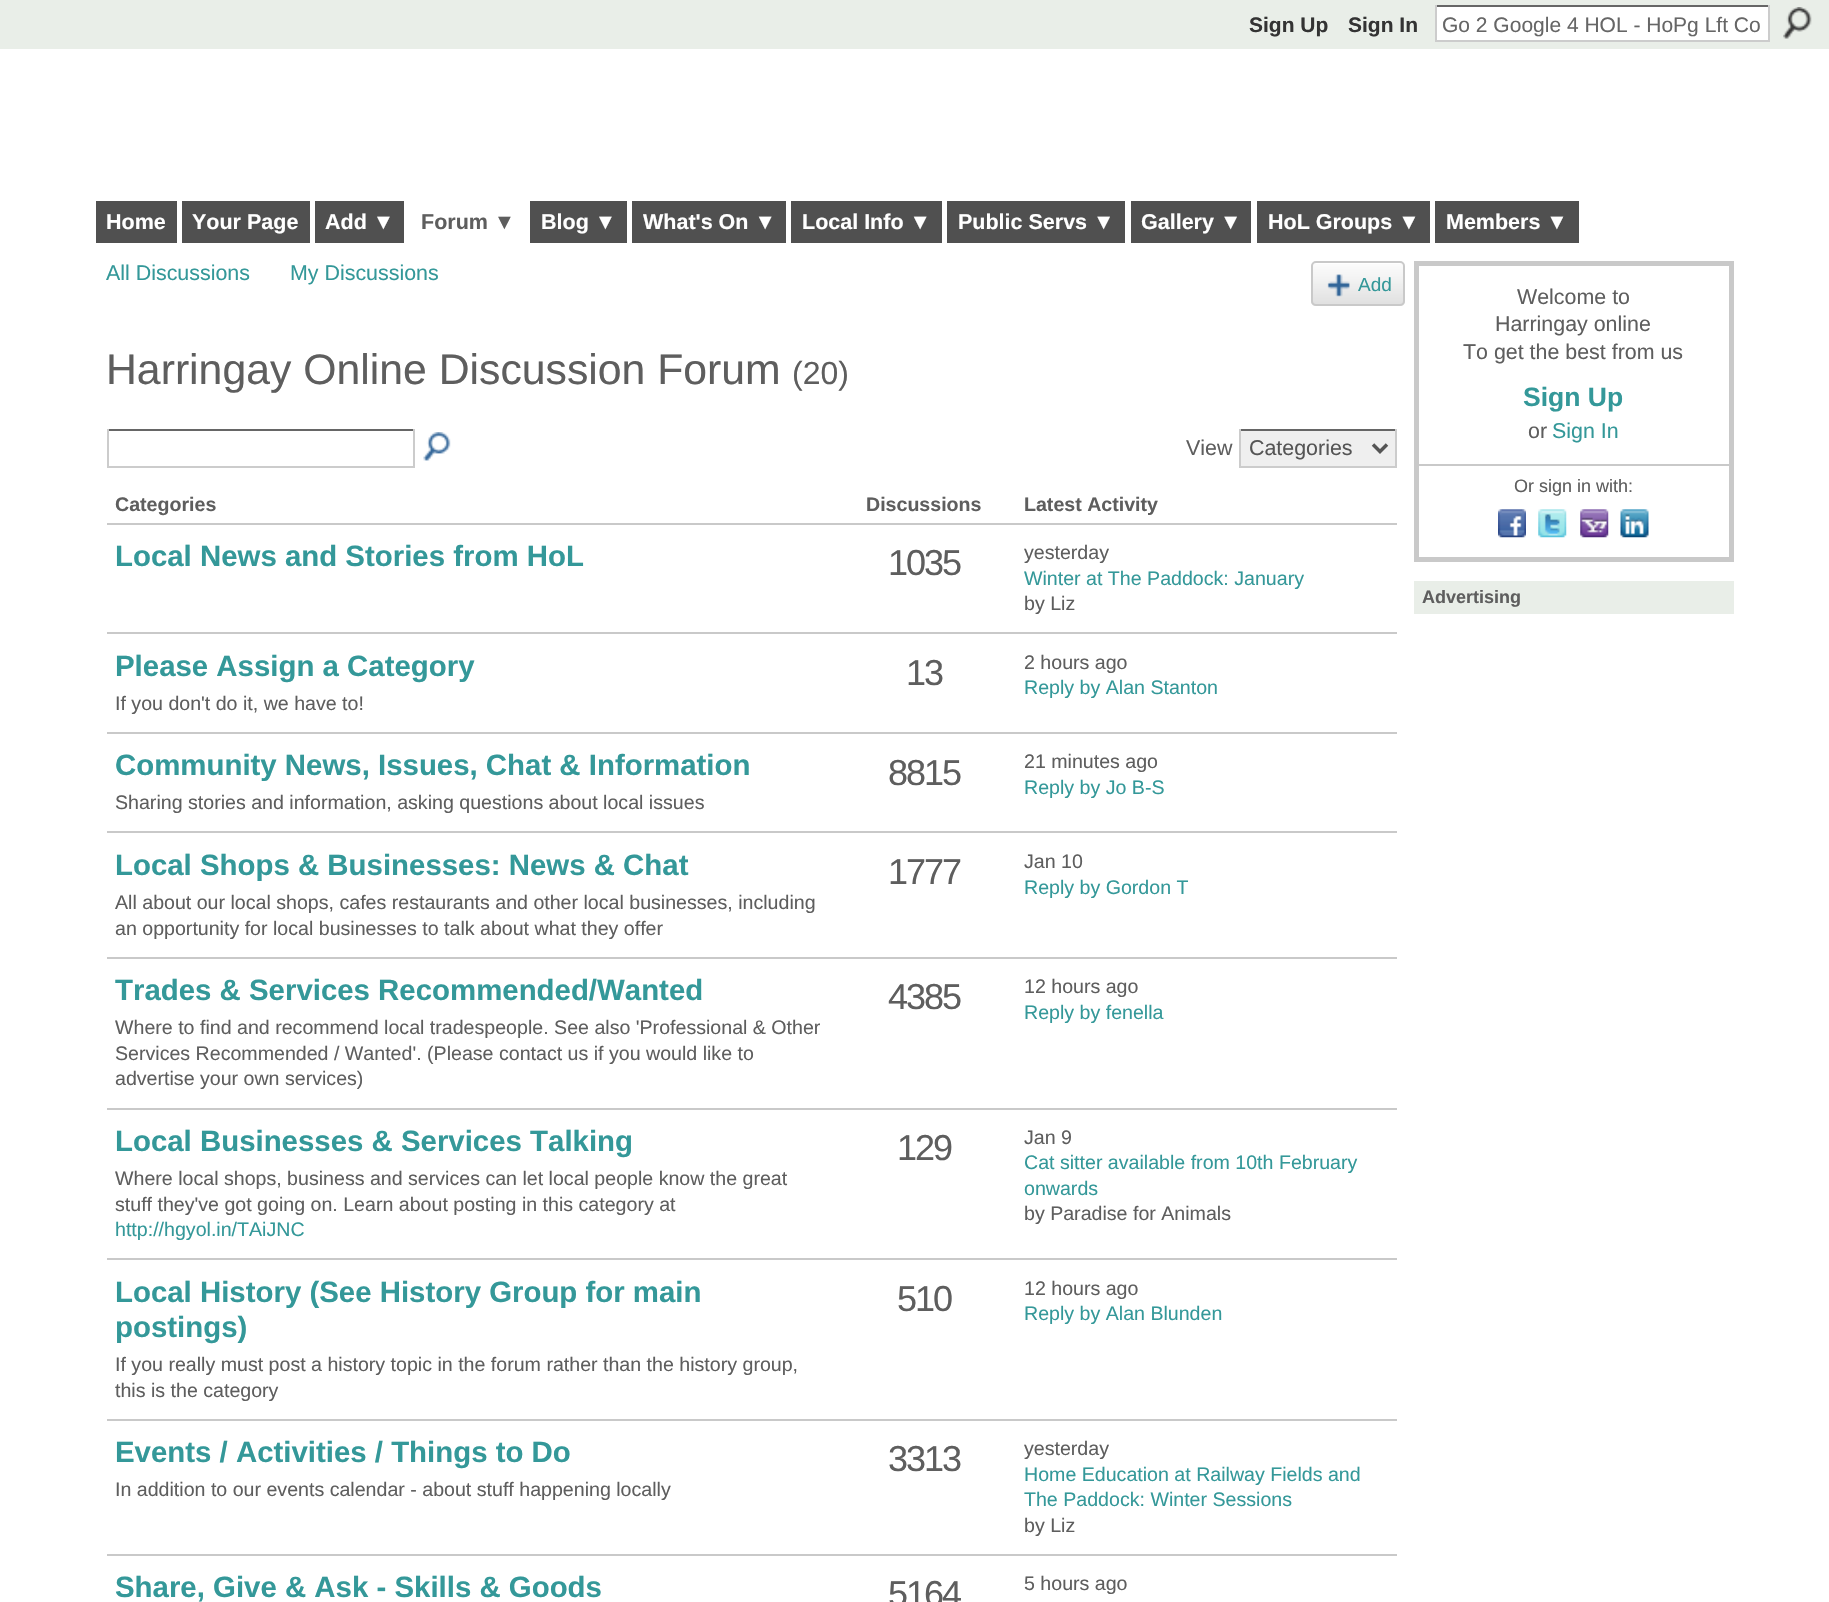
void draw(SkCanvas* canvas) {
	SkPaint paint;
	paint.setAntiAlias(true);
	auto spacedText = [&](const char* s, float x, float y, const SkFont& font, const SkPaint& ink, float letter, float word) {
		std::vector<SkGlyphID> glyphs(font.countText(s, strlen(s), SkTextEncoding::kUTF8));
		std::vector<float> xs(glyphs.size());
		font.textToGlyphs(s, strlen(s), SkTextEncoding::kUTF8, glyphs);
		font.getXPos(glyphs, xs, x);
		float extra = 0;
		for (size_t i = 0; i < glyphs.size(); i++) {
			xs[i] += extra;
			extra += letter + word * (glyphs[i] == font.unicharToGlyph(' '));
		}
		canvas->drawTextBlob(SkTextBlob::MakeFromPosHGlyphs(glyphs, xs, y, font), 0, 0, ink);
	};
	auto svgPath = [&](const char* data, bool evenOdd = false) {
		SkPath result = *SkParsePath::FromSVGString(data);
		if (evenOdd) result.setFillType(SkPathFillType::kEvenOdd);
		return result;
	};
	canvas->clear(0xffffffff);
	paint.setColor(0xffe9eee8);
	canvas->drawRect(SkRect::MakeXYWH(0, 0, 1829, 49), paint);
	SkFont f1(fontMgr->matchFamilyStyle("Liberation Sans", SkFontStyle::Bold()), 21);
	f1.setSubpixel(true);
	paint.setColor(0xff333333);
	canvas->drawString("Sign Up", 1249, 32, f1, paint);
	canvas->drawString("Sign In", 1348, 32, f1, paint);
	paint.setColor(0xffffffff);
	canvas->drawRect(SkRect::MakeXYWH(1437, 7, 331, 33), paint);
	paint.setColor(0xff666666);
	canvas->drawRect(SkRect::MakeXYWH(1435, 5, 334, 2), paint);
	paint.setColor(0xffcccccc);
	canvas->drawRect(SkRect::MakeXYWH(1768, 5, 2, 37), paint);
	canvas->drawRect(SkRect::MakeXYWH(1435, 40, 334, 2), paint);
	canvas->drawRect(SkRect::MakeXYWH(1435, 5, 2, 37), paint);
	SkFont f2(fontMgr->matchFamilyStyle("Liberation Sans", SkFontStyle::Normal()), 21);
	f2.setSubpixel(true);
	paint.setColor(0xff666666);
	canvas->drawString("Go 2 Google 4 HOL - HoPg Lft Co", 1442, 32, f2, paint);
	canvas->drawImageRect(SkImages::DeferredFromEncodedData(SkData::MakeFromFileName("img1.png")), SkRect::MakeXYWH(1783, 7, 29, 32), SkSamplingOptions());
	paint.setColor(0xff505050);
	canvas->drawRect(SkRect::MakeXYWH(96, 201, 81, 42), paint);
	SkFont f3(fontMgr->matchFamilyStyle("Liberation Sans", SkFontStyle::Bold()), 21.5);
	f3.setSubpixel(true);
	paint.setColor(0xffffffff);
	canvas->drawString("Home", 106, 229, f3, paint);
	paint.setColor(0xff505050);
	canvas->drawRect(SkRect::MakeXYWH(182, 201, 128, 42), paint);
	paint.setColor(0xffffffff);
	canvas->drawString("Your Page", 192, 229, f3, paint);
	paint.setColor(0xff505050);
	canvas->drawRect(SkRect::MakeXYWH(315, 201, 89, 42), paint);
	paint.setColor(0xffffffff);
	canvas->drawString("Add ▼", 325, 229, f3, paint);
	paint.setColor(0xff5e5e5e);
	canvas->drawString("Forum ▼", 421, 229, f3, paint);
	paint.setColor(0xff505050);
	canvas->drawRect(SkRect::MakeXYWH(530, 201, 97, 42), paint);
	paint.setColor(0xffffffff);
	canvas->drawString("Blog ▼", 541, 229, f3, paint);
	paint.setColor(0xff505050);
	canvas->drawRect(SkRect::MakeXYWH(632, 201, 154, 42), paint);
	paint.setColor(0xffffffff);
	canvas->drawString("What's On ▼", 643, 229, f3, paint);
	paint.setColor(0xff505050);
	canvas->drawRect(SkRect::MakeXYWH(791, 201, 151, 42), paint);
	paint.setColor(0xffffffff);
	canvas->drawString("Local Info ▼", 802, 229, f3, paint);
	paint.setColor(0xff505050);
	canvas->drawRect(SkRect::MakeXYWH(947, 201, 178, 42), paint);
	paint.setColor(0xffffffff);
	canvas->drawString("Public Servs ▼", 958, 229, f3, paint);
	paint.setColor(0xff505050);
	canvas->drawRect(SkRect::MakeXYWH(1131, 201, 120, 42), paint);
	paint.setColor(0xffffffff);
	canvas->drawString("Gallery ▼", 1141, 229, f3, paint);
	paint.setColor(0xff505050);
	canvas->drawRect(SkRect::MakeXYWH(1257, 201, 173, 42), paint);
	paint.setColor(0xffffffff);
	canvas->drawString("HoL Groups ▼", 1268, 229, f3, paint);
	paint.setColor(0xff505050);
	canvas->drawRect(SkRect::MakeXYWH(1435, 201, 144, 42), paint);
	paint.setColor(0xffffffff);
	canvas->drawString("Members ▼", 1446, 229, f3, paint);
	SkFont f4(fontMgr->matchFamilyStyle("Liberation Sans", SkFontStyle::Normal()), 21.4);
	f4.setSubpixel(true);
	paint.setColor(0xff349899);
	canvas->drawString("All Discussions", 106, 280, f4, paint);
	canvas->drawString("My Discussions", 290, 280, f4, paint);
	canvas->drawImageRect(SkImages::DeferredFromEncodedData(SkData::MakeFromFileName("img2.png")), SkRect::MakeXYWH(1311, 264, 94, 42), SkSamplingOptions());
	paint.setStroke(true);
	paint.setStrokeWidth(2);
	paint.setColor(0xffc9c9c9);
	canvas->drawRoundRect(SkRect::MakeXYWH(1312, 262, 92, 43), 4, 4, paint);
	canvas->drawImageRect(SkImages::DeferredFromEncodedData(SkData::MakeFromFileName("img3.png")), SkRect::MakeXYWH(1327, 274, 23, 23), SkSamplingOptions());
	SkFont f5(fontMgr->matchFamilyStyle("Liberation Sans", SkFontStyle::Normal()), 19);
	f5.setSubpixel(true);
	paint.setStroke(false);
	paint.setColor(0xff349899);
	canvas->drawString("Add", 1358, 291, f5, paint);
	SkFont f6(fontMgr->matchFamilyStyle("Liberation Sans", SkFontStyle::Normal()), 42.75);
	f6.setSubpixel(true);
	paint.setColor(0xff5e5e5e);
	canvas->drawString("Harringay Online Discussion Forum", 106, 384, f6, paint);
	SkFont f7(fontMgr->matchFamilyStyle("Liberation Sans", SkFontStyle::Normal()), 32);
	f7.setSubpixel(true);
	canvas->drawString("(20)", 792, 384, f7, paint);
	paint.setColor(0xff666666);
	canvas->drawRect(SkRect::MakeXYWH(107, 429, 308, 2), paint);
	paint.setColor(0xffcccccc);
	canvas->drawRect(SkRect::MakeXYWH(413, 429, 2, 38), paint);
	canvas->drawRect(SkRect::MakeXYWH(107, 466, 308, 2), paint);
	canvas->drawRect(SkRect::MakeXYWH(107, 429, 2, 38), paint);
	canvas->drawImageRect(SkImages::DeferredFromEncodedData(SkData::MakeFromFileName("img4.png")), SkRect::MakeXYWH(423, 432, 28, 29), SkSamplingOptions());
	paint.setColor(0xff5e5e5e);
	canvas->drawString("View", 1186, 455, f4, paint);
	paint.setColor(0xffefefef);
	canvas->drawRect(SkRect::MakeXYWH(1241, 431, 154, 35), paint);
	paint.setColor(0xff666666);
	canvas->drawRect(SkRect::MakeXYWH(1239, 429, 158, 2), paint);
	paint.setColor(0xffcccccc);
	canvas->drawRect(SkRect::MakeXYWH(1395, 429, 2, 38), paint);
	canvas->drawRect(SkRect::MakeXYWH(1239, 466, 158, 2), paint);
	canvas->drawRect(SkRect::MakeXYWH(1239, 429, 2, 38), paint);
	paint.setStroke(true);
	paint.setStrokeWidth(3.5);
	paint.setColor(0xff555555);
	canvas->drawPath(svgPath("M1373 444.5L1380 451.5L1387 444.5"), paint);
	canvas->save();
	canvas->clipRect(SkRect::MakeXYWH(1250, 434, 115, 28));
	paint.setStroke(false);
	canvas->drawString("Categories", 1249, 455, f4, paint);
	canvas->restore();
	SkFont f8(fontMgr->matchFamilyStyle("Liberation Sans", SkFontStyle::Bold()), 19.6);
	f8.setSubpixel(true);
	paint.setColor(0xff5e5e5e);
	canvas->drawString("Categories", 115, 511, f8, paint);
	canvas->drawString("Discussions", 866, 511, f8, paint);
	paint.setColor(0xffc9c9c9);
	canvas->drawRect(SkRect::MakeXYWH(107, 523, 1290, 2), paint);
	paint.setColor(0xff5e5e5e);
	canvas->drawString("Latest Activity", 1024, 511, f8, paint);
	SkFont f9(fontMgr->matchFamilyStyle("Liberation Sans", SkFontStyle::Bold()), 29.4);
	f9.setSubpixel(true);
	paint.setColor(0xff349899);
	canvas->drawString("Local News and Stories from HoL", 115, 566, f9, paint);
	SkFont f10(fontMgr->matchFamilyStyle("Liberation Sans", SkFontStyle::Normal()), 36);
	f10.setSubpixel(true);
	paint.setColor(0xff5e5e5e);
	spacedText("1035", 888, 575, f10, paint, -2, 0);
	paint.setColor(0xffc9c9c9);
	canvas->drawRect(SkRect::MakeXYWH(107, 632, 1290, 2), paint);
	SkFont f11(fontMgr->matchFamilyStyle("Liberation Sans", SkFontStyle::Normal()), 19.6);
	f11.setSubpixel(true);
	paint.setColor(0xff5e5e5e);
	canvas->drawString("yesterday", 1024, 559, f11, paint);
	paint.setColor(0xff349899);
	canvas->drawString("Winter at The Paddock: January", 1024, 585, f11, paint);
	paint.setColor(0xff5e5e5e);
	canvas->drawString("by Liz", 1024, 610, f11, paint);
	paint.setColor(0xff349899);
	canvas->drawString("Please Assign a Category", 115, 676, f9, paint);
	paint.setColor(0xff5e5e5e);
	canvas->drawString("If you don't do it, we have to!", 115, 710, f11, paint);
	spacedText("13", 906, 685, f10, paint, -2, 0);
	paint.setColor(0xffc9c9c9);
	canvas->drawRect(SkRect::MakeXYWH(107, 732, 1290, 2), paint);
	paint.setColor(0xff5e5e5e);
	canvas->drawString("2 hours ago", 1024, 669, f11, paint);
	paint.setColor(0xff349899);
	canvas->drawString("Reply by Alan Stanton", 1024, 694, f11, paint);
	canvas->drawString("Community News, Issues, Chat & Information", 115, 775, f9, paint);
	paint.setColor(0xff5e5e5e);
	canvas->drawString("Sharing stories and information, asking questions about local issues", 115, 809, f11, paint);
	spacedText("8815", 888, 785, f10, paint, -2, 0);
	paint.setColor(0xffc9c9c9);
	canvas->drawRect(SkRect::MakeXYWH(107, 831, 1290, 2), paint);
	paint.setColor(0xff5e5e5e);
	canvas->drawString("21 minutes ago", 1024, 768, f11, paint);
	paint.setColor(0xff349899);
	canvas->drawString("Reply by Jo B-S", 1024, 794, f11, paint);
	canvas->drawString("Local Shops & Businesses: News & Chat", 115, 875, f9, paint);
	paint.setColor(0xff5e5e5e);
	canvas->drawString("All about our local shops, cafes restaurants and other local businesses, including", 115, 909, f11, paint);
	canvas->drawString("an opportunity for local businesses to talk about what they offer", 115, 935, f11, paint);
	spacedText("1777", 888, 884, f10, paint, -2, 0);
	paint.setColor(0xffc9c9c9);
	canvas->drawRect(SkRect::MakeXYWH(107, 957, 1290, 2), paint);
	paint.setColor(0xff5e5e5e);
	canvas->drawString("Jan 10", 1024, 868, f11, paint);
	paint.setColor(0xff349899);
	canvas->drawString("Reply by Gordon T", 1024, 894, f11, paint);
	canvas->drawString("Trades & Services Recommended/Wanted", 115, 1000, f9, paint);
	paint.setColor(0xff5e5e5e);
	canvas->drawString("Where to find and recommend local tradespeople. See also 'Professional & Other", 115, 1034, f11, paint);
	canvas->drawString("Services Recommended / Wanted'. (Please contact us if you would like to", 115, 1060, f11, paint);
	canvas->drawString("advertise your own services)", 115, 1085, f11, paint);
	spacedText("4385", 888, 1009, f10, paint, -2, 0);
	paint.setColor(0xffc9c9c9);
	canvas->drawRect(SkRect::MakeXYWH(107, 1108, 1290, 2), paint);
	paint.setColor(0xff5e5e5e);
	canvas->drawString("12 hours ago", 1024, 993, f11, paint);
	paint.setColor(0xff349899);
	canvas->drawString("Reply by fenella", 1024, 1019, f11, paint);
	canvas->drawString("Local Businesses & Services Talking", 115, 1151, f9, paint);
	paint.setColor(0xff5e5e5e);
	canvas->drawString("Where local shops, business and services can let local people know the great", 115, 1185, f11, paint);
	canvas->drawString("stuff they've got going on. Learn about posting in this category at", 115, 1211, f11, paint);
	paint.setColor(0xff349899);
	canvas->drawString("http://hgyol.in/TAiJNC", 115, 1236, f11, paint);
	paint.setColor(0xff5e5e5e);
	spacedText("129", 897, 1160, f10, paint, -2, 0);
	paint.setColor(0xffc9c9c9);
	canvas->drawRect(SkRect::MakeXYWH(107, 1258, 1290, 2), paint);
	paint.setColor(0xff5e5e5e);
	canvas->drawString("Jan 9", 1024, 1144, f11, paint);
	paint.setColor(0xff349899);
	canvas->drawString("Cat sitter available from 10th February", 1024, 1169, f11, paint);
	canvas->drawString("onwards", 1024, 1195, f11, paint);
	paint.setColor(0xff5e5e5e);
	canvas->drawString("by Paradise for Animals", 1024, 1220, f11, paint);
	paint.setColor(0xff349899);
	canvas->drawString("Local History (See History Group for main", 115, 1302, f9, paint);
	canvas->drawString("postings)", 115, 1337, f9, paint);
	paint.setColor(0xff5e5e5e);
	canvas->drawString("If you really must post a history topic in the forum rather than the history group,", 115, 1371, f11, paint);
	canvas->drawString("this is the category", 115, 1397, f11, paint);
	spacedText("510", 897, 1311, f10, paint, -2, 0);
	paint.setColor(0xffc9c9c9);
	canvas->drawRect(SkRect::MakeXYWH(107, 1419, 1290, 2), paint);
	paint.setColor(0xff5e5e5e);
	canvas->drawString("12 hours ago", 1024, 1295, f11, paint);
	paint.setColor(0xff349899);
	canvas->drawString("Reply by Alan Blunden", 1024, 1320, f11, paint);
	canvas->drawString("Events / Activities / Things to Do", 115, 1462, f9, paint);
	paint.setColor(0xff5e5e5e);
	canvas->drawString("In addition to our events calendar - about stuff happening locally", 115, 1496, f11, paint);
	spacedText("3313", 888, 1471, f10, paint, -2, 0);
	paint.setColor(0xffc9c9c9);
	canvas->drawRect(SkRect::MakeXYWH(107, 1554, 1290, 2), paint);
	paint.setColor(0xff5e5e5e);
	canvas->drawString("yesterday", 1024, 1455, f11, paint);
	paint.setColor(0xff349899);
	canvas->drawString("Home Education at Railway Fields and", 1024, 1481, f11, paint);
	canvas->drawString("The Paddock: Winter Sessions", 1024, 1506, f11, paint);
	paint.setColor(0xff5e5e5e);
	canvas->drawString("by Liz", 1024, 1532, f11, paint);
	paint.setColor(0xff349899);
	canvas->drawString("Share, Give & Ask - Skills & Goods", 115, 1597, f9, paint);
	paint.setColor(0xff5e5e5e);
	spacedText("5164", 888, 1606, f10, paint, -2, 0);
	canvas->drawString("5 hours ago", 1024, 1590, f11, paint);
	paint.setStroke(true);
	paint.setStrokeWidth(5);
	paint.setColor(0xffc9c9c9);
	canvas->drawRect(SkRect::MakeXYWH(1416.5, 263.5, 315, 296), paint);
	paint.setStroke(false);
	paint.setColor(0xff5e5e5e);
	canvas->drawString("Welcome to", 1517, 304, f4, paint);
	canvas->drawString("Harringay online", 1495, 331, f4, paint);
	canvas->drawString("To get the best from us", 1463, 359, f4, paint);
	SkFont f12(fontMgr->matchFamilyStyle("Liberation Sans", SkFontStyle::Bold()), 26.5);
	f12.setSubpixel(true);
	paint.setColor(0xff349899);
	canvas->drawString("Sign Up", 1523, 406, f12, paint);
	paint.setColor(0xff5e5e5e);
	canvas->drawString("or", 1528, 438, f4, paint);
	paint.setColor(0xff349899);
	canvas->drawString("Sign In", 1552, 438, f4, paint);
	paint.setColor(0xffc9c9c9);
	canvas->drawRect(SkRect::MakeXYWH(1419, 464, 310, 2), paint);
	SkFont f13(fontMgr->matchFamilyStyle("Liberation Sans", SkFontStyle::Normal()), 18);
	f13.setSubpixel(true);
	paint.setColor(0xff5e5e5e);
	canvas->drawString("Or sign in with:", 1514, 492, f13, paint);
	canvas->drawImageRect(SkImages::DeferredFromEncodedData(SkData::MakeFromFileName("img5.png")), SkRect::MakeXYWH(1498, 509, 28, 29), SkSamplingOptions());
	canvas->drawImageRect(SkImages::DeferredFromEncodedData(SkData::MakeFromFileName("img6.png")), SkRect::MakeXYWH(1538, 509, 29, 29), SkSamplingOptions());
	canvas->drawImageRect(SkImages::DeferredFromEncodedData(SkData::MakeFromFileName("img7.png")), SkRect::MakeXYWH(1580, 509, 29, 29), SkSamplingOptions());
	canvas->drawImageRect(SkImages::DeferredFromEncodedData(SkData::MakeFromFileName("img8.png")), SkRect::MakeXYWH(1620, 509, 29, 29), SkSamplingOptions());
	paint.setColor(0xffe9eee8);
	canvas->drawRect(SkRect::MakeXYWH(1414, 581, 320, 33), paint);
	SkFont f14(fontMgr->matchFamilyStyle("Liberation Sans", SkFontStyle::Bold()), 18);
	f14.setSubpixel(true);
	paint.setColor(0xff5e5e5e);
	canvas->drawString("Advertising", 1422, 603, f14, paint);
}
